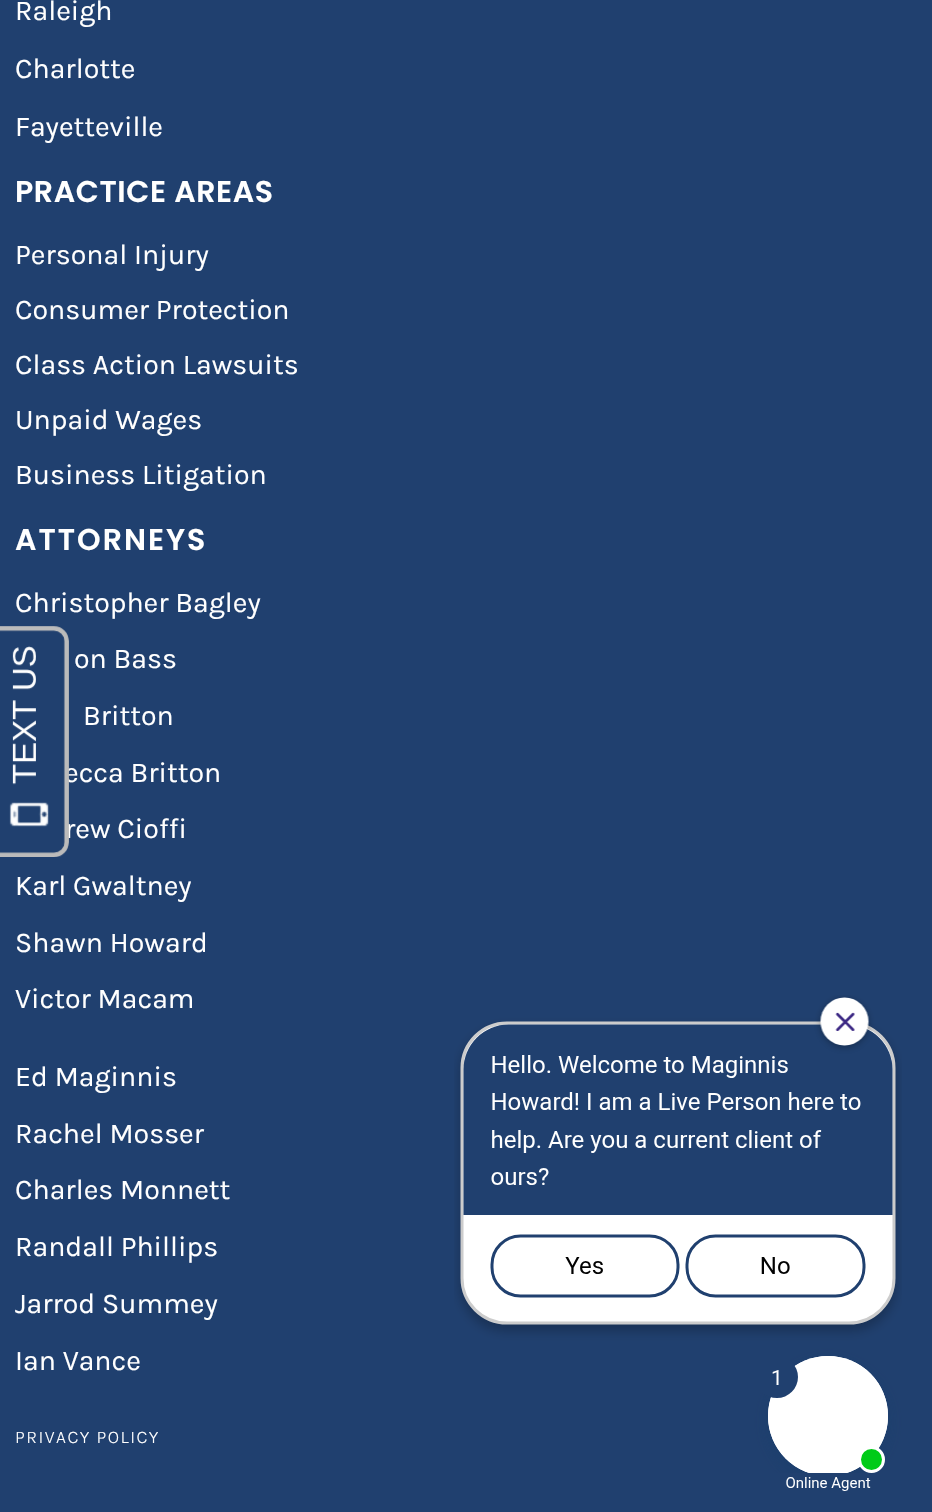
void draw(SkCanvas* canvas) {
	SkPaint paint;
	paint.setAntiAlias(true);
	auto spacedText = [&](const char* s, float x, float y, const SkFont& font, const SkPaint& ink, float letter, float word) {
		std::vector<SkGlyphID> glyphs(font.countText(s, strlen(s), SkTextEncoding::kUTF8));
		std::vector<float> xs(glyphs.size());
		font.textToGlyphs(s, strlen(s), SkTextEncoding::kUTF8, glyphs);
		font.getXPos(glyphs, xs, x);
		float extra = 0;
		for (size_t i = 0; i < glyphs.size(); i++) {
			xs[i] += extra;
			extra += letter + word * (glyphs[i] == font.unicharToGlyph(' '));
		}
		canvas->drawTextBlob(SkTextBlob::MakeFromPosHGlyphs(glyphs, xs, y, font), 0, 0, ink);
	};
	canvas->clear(0xff20406f);
	SkFont f1(fontMgr->matchFamilyStyle("Karla", SkFontStyle::Normal()), 28.5);
	f1.setSubpixel(true);
	paint.setColor(0xffffffff);
	canvas->drawString("Raleigh", 15, 20, f1, paint);
	canvas->drawString("Charlotte", 15, 78, f1, paint);
	canvas->drawString("Fayetteville", 15, 136, f1, paint);
	SkFont f2(fontMgr->matchFamilyStyle("Poppins", SkFontStyle(600, SkFontStyle::kNormal_Width, SkFontStyle::kUpright_Slant)), 30);
	f2.setSubpixel(true);
	spacedText("PRACTICE AREAS", 15, 202, f2, paint, 0.6, 0);
	canvas->drawString("Personal Injury", 15, 264, f1, paint);
	canvas->drawString("Consumer Protection", 15, 319, f1, paint);
	canvas->drawString("Class Action Lawsuits", 15, 374, f1, paint);
	canvas->drawString("Unpaid Wages", 15, 429, f1, paint);
	canvas->drawString("Business Litigation", 15, 484, f1, paint);
	spacedText("ATTORNEYS", 15, 550, f2, paint, 2, 0);
	canvas->drawString("Christopher Bagley", 15, 612, f1, paint);
	canvas->drawString("on Bass", 74, 668, f1, paint);
	canvas->drawString("Britton", 83, 725, f1, paint);
	canvas->drawString("ecca Britton", 64, 782, f1, paint);
	canvas->drawString("rew Cioffi", 65, 838, f1, paint);
	canvas->drawString("Karl Gwaltney", 15, 895, f1, paint);
	canvas->drawString("Shawn Howard", 15, 952, f1, paint);
	canvas->drawString("Victor Macam", 15, 1008, f1, paint);
	canvas->drawString("Ed Maginnis", 15, 1086, f1, paint);
	canvas->drawString("Rachel Mosser", 15, 1143, f1, paint);
	canvas->drawString("Charles Monnett", 15, 1199, f1, paint);
	canvas->drawString("Randall Phillips", 15, 1256, f1, paint);
	canvas->drawString("Jarrod Summey", 15, 1313, f1, paint);
	canvas->drawString("Ian Vance", 15, 1370, f1, paint);
	SkFont f3(fontMgr->matchFamilyStyle("Karla", SkFontStyle(300, SkFontStyle::kNormal_Width, SkFontStyle::kUpright_Slant)), 18);
	f3.setSubpixel(true);
	spacedText("PRIVACY POLICY", 15, 1443, f3, paint, 1.5, 0);
	canvas->drawImageRect(SkImages::DeferredFromEncodedData(SkData::MakeFromFileName("img1.png")), SkRect::MakeXYWH(0, 626, 69, 231), SkSamplingOptions());
	canvas->drawImageRect(SkImages::DeferredFromEncodedData(SkData::MakeFromFileName("img2.png")), SkRect::MakeXYWH(454, 995, 448, 496), SkSamplingOptions());
}
